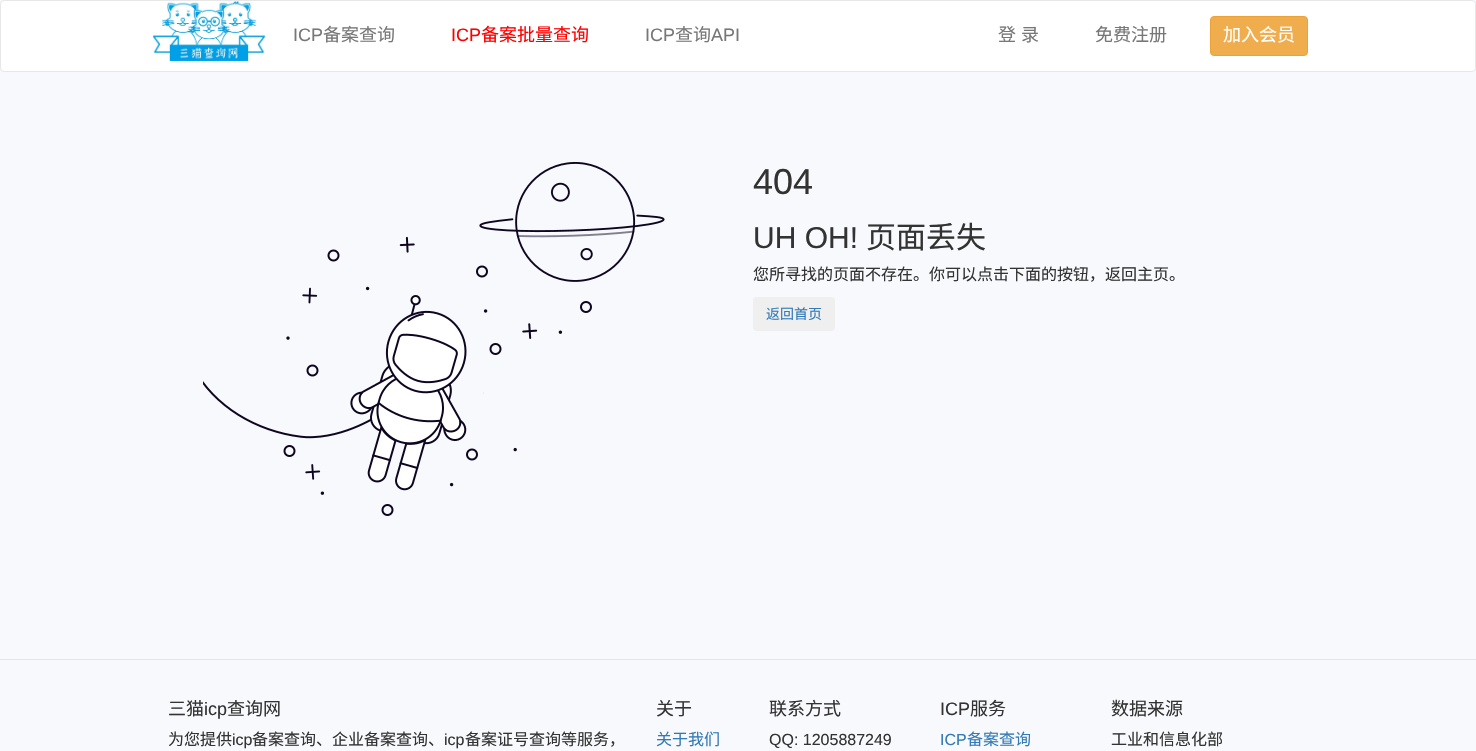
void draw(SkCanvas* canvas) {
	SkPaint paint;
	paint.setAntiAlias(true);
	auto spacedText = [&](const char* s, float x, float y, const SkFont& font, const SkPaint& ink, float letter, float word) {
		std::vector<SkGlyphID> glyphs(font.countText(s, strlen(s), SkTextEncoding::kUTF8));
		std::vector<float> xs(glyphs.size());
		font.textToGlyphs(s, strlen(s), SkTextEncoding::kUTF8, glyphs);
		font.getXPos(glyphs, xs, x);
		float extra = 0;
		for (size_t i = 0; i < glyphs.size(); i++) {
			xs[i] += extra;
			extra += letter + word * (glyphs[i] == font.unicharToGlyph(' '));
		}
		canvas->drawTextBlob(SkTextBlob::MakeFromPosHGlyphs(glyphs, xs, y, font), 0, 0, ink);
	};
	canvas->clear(0xfff7f9fc);
	paint.setColor(0xffffffff);
	canvas->drawRoundRect(SkRect::MakeXYWH(0.5, 0.5, 1475, 71), 3.5, 3.5, paint);
	paint.setStroke(true);
	paint.setStrokeWidth(1);
	paint.setColor(0xffe7e7e7);
	canvas->drawRoundRect(SkRect::MakeXYWH(0.5, 0.5, 1475, 71), 3.5, 3.5, paint);
	canvas->drawImageRect(SkImages::DeferredFromEncodedData(SkData::MakeFromFileName("img1.png")), SkRect::MakeXYWH(153, 1, 112, 60), SkSamplingOptions());
	SkFont f1(fontMgr->matchFamilyStyle("Liberation Sans", SkFontStyle::Normal()), 18);
	f1.setSubpixel(true);
	paint.setStroke(false);
	paint.setColor(0xff777777);
	canvas->drawString("ICP", 293, 41, f1, paint);
	SkFont f2(fontMgr->matchFamilyStyle("Noto Sans CJK SC", SkFontStyle::Normal()), 18);
	f2.setSubpixel(true);
	canvas->drawString("备案查询", 323, 41, f2, paint);
	paint.setColor(0xffff0000);
	canvas->drawString("ICP", 451, 41, f1, paint);
	canvas->drawString("备案批量查询", 481, 41, f2, paint);
	paint.setColor(0xff777777);
	canvas->drawString("ICP", 645, 41, f1, paint);
	canvas->drawString("查询", 675, 41, f2, paint);
	canvas->drawString("API", 711, 41, f1, paint);
	spacedText("登 录", 998, 41, f2, paint, 0, 1);
	canvas->drawString("免费注册", 1095, 41, f2, paint);
	paint.setColor(0xfff0ad4e);
	canvas->drawRoundRect(SkRect::MakeXYWH(1210.5, 16.5, 97, 39), 3.5, 3.5, paint);
	paint.setStroke(true);
	paint.setColor(0xffeea236);
	canvas->drawRoundRect(SkRect::MakeXYWH(1210.5, 16.5, 97, 39), 3.5, 3.5, paint);
	paint.setStroke(false);
	paint.setColor(0xffffffff);
	canvas->drawString("加入会员", 1223, 41, f2, paint);
	canvas->drawImageRect(SkImages::DeferredFromEncodedData(SkData::MakeFromFileName("img2.png")), SkRect::MakeXYWH(203, 162, 462, 354), SkSamplingOptions());
	SkFont f3(fontMgr->matchFamilyStyle("Liberation Sans", SkFontStyle::Normal()), 36);
	f3.setSubpixel(true);
	paint.setColor(0xff333333);
	canvas->drawString("404", 753, 194, f3, paint);
	SkFont f4(fontMgr->matchFamilyStyle("Liberation Sans", SkFontStyle::Normal()), 30);
	f4.setSubpixel(true);
	canvas->drawString("UH OH!", 753, 248, f4, paint);
	SkFont f5(fontMgr->matchFamilyStyle("Noto Sans CJK SC", SkFontStyle::Normal()), 30);
	f5.setSubpixel(true);
	canvas->drawString("页面丢失", 866, 248, f5, paint);
	SkFont f6(fontMgr->matchFamilyStyle("Noto Sans CJK SC", SkFontStyle::Normal()), 16);
	f6.setSubpixel(true);
	canvas->drawString("您所寻找的页面不存在。你可以点击下面的按钮，返回主页。", 753, 280, f6, paint);
	paint.setColor(0xffefefef);
	canvas->drawRoundRect(SkRect::MakeXYWH(753, 297, 82, 34), 4, 4, paint);
	SkFont f7(fontMgr->matchFamilyStyle("Noto Sans CJK SC", SkFontStyle::Normal()), 14);
	f7.setSubpixel(true);
	paint.setColor(0xff337ab7);
	canvas->drawString("返回首页", 766, 319, f7, paint);
	paint.setColor(0xffe5e5e5);
	canvas->drawRect(SkRect::MakeXYWH(0, 659, 1476, 1), paint);
	paint.setColor(0xff333333);
	canvas->drawString("三猫", 168, 715, f2, paint);
	canvas->drawString("icp", 204, 715, f1, paint);
	canvas->drawString("查询网", 227, 715, f2, paint);
	canvas->drawString("为您提供", 168, 745, f6, paint);
	SkFont f8(fontMgr->matchFamilyStyle("Liberation Sans", SkFontStyle::Normal()), 16);
	f8.setSubpixel(true);
	canvas->drawString("icp", 232, 745, f8, paint);
	canvas->drawString("备案查询、企业备案查询、", 252, 745, f6, paint);
	canvas->drawString("icp", 444, 745, f8, paint);
	canvas->drawString("备案证号查询等服务，", 465, 745, f6, paint);
	canvas->drawString("关于", 656, 715, f2, paint);
	paint.setColor(0xff337ab7);
	canvas->drawString("关于我们", 656, 745, f6, paint);
	paint.setColor(0xff333333);
	canvas->drawString("联系方式", 769, 715, f2, paint);
	canvas->drawString("QQ: 1205887249", 769, 745, f8, paint);
	canvas->drawString("ICP", 940, 715, f1, paint);
	canvas->drawString("服务", 970, 715, f2, paint);
	paint.setColor(0xff337ab7);
	canvas->drawString("ICP", 940, 745, f8, paint);
	canvas->drawString("备案查询", 967, 745, f6, paint);
	paint.setColor(0xff333333);
	canvas->drawString("数据来源", 1111, 715, f2, paint);
	canvas->drawString("工业和信息化部", 1111, 745, f6, paint);
}
